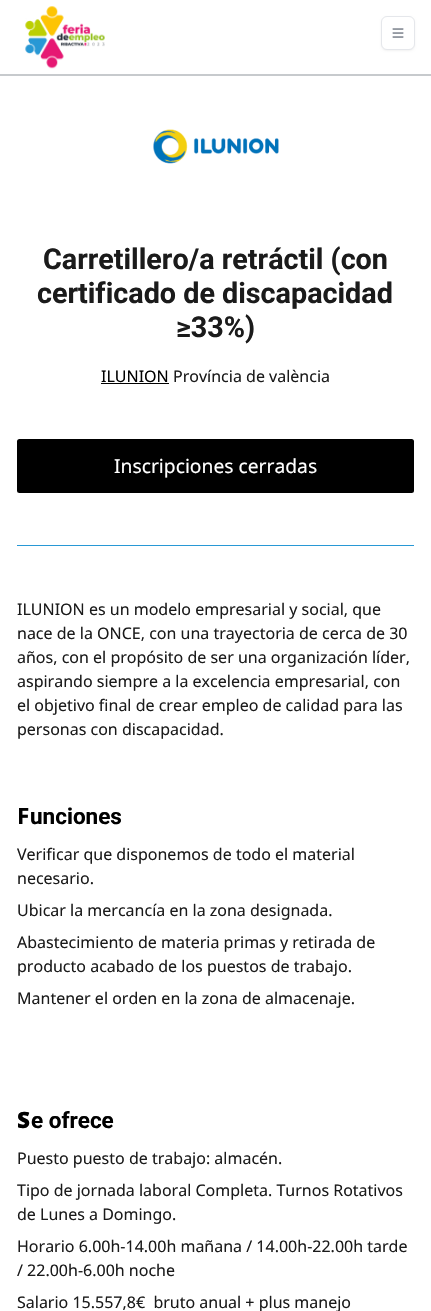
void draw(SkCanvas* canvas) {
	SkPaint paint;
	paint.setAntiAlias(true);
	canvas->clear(0xffffffff);
	canvas->drawImageRect(SkImages::DeferredFromEncodedData(SkData::MakeFromFileName("img1.png")), SkRect::MakeXYWH(25, 6, 80, 63), SkSamplingOptions());
	paint.setColor(0x0d000000);
	paint.setMaskFilter(SkMaskFilter::MakeBlur(kNormal_SkBlurStyle, 1));
	canvas->drawRoundRect(SkRect::MakeXYWH(381, 17, 34, 34), 6, 6, paint);
	paint.setMaskFilter(nullptr);
	paint.setColor(0xffffffff);
	canvas->drawRoundRect(SkRect::MakeXYWH(381.5, 16.5, 33, 33), 5.5, 5.5, paint);
	paint.setStroke(true);
	paint.setStrokeWidth(1);
	paint.setColor(0xffe5e7eb);
	canvas->drawRoundRect(SkRect::MakeXYWH(381.5, 16.5, 33, 33), 5.5, 5.5, paint);
	canvas->drawImageRect(SkImages::DeferredFromEncodedData(SkData::MakeFromFileName("img2.png")), SkRect::MakeXYWH(392, 28, 12, 10), SkSamplingOptions());
	paint.setStroke(false);
	paint.setColor(0xffc7cacd);
	canvas->drawRect(SkRect::MakeXYWH(0, 74, 431, 2), paint);
	paint.setColor(0xff2898d5);
	canvas->drawRect(SkRect::MakeXYWH(17, 545, 397, 1), paint);
	canvas->drawImageRect(SkImages::DeferredFromEncodedData(SkData::MakeFromFileName("img3.png")), SkRect::MakeXYWH(153, 129, 126, 35), SkSamplingOptions());
	SkFont f1(fontMgr->matchFamilyStyle("Roboto", SkFontStyle::Bold()), 28.75);
	f1.setSubpixel(true);
	paint.setColor(0xff1b1b1b);
	canvas->drawString("Carretillero/a retráctil (con", 43, 269, f1, paint);
	canvas->drawString("certificado de discapacidad", 37, 303, f1, paint);
	canvas->drawString("≥33%)", 176, 337, f1, paint);
	SkFont f2(fontMgr->matchFamilyStyle("Noto Sans", SkFontStyle::Normal()), 16);
	f2.setSubpixel(true);
	paint.setColor(0xff000000);
	canvas->drawString("ILUNION", 101, 382, f2, paint);
	canvas->drawRect(SkRect::MakeXYWH(101, 383, 68, 1), paint);
	paint.setColor(0xff1b1b1b);
	canvas->drawString("Província de valència", 173, 382, f2, paint);
	paint.setColor(0xff000000);
	canvas->drawRoundRect(SkRect::MakeXYWH(17, 439, 397, 54), 2.5, 2.5, paint);
	SkFont f3(fontMgr->matchFamilyStyle("Noto Sans", SkFontStyle::Normal()), 19.25);
	f3.setSubpixel(true);
	paint.setColor(0xffffffff);
	canvas->drawString("Inscripciones cerradas", 114, 473, f3, paint);
	paint.setColor(0xff1b1b1b);
	canvas->drawString("ILUNION es un modelo empresarial y social, que", 17, 615, f2, paint);
	canvas->drawString("nace de la ONCE, con una trayectoria de cerca de 30", 17, 639, f2, paint);
	canvas->drawString("años, con el propósito de ser una organización líder,", 17, 663, f2, paint);
	canvas->drawString("aspirando siempre a la excelencia empresarial, con", 17, 687, f2, paint);
	canvas->drawString("el objetivo final de crear empleo de calidad para las", 17, 711, f2, paint);
	canvas->drawString("personas con discapacidad.", 17, 735, f2, paint);
	SkFont f4(fontMgr->matchFamilyStyle("Noto Sans", SkFontStyle::Bold()), 22.5);
	f4.setSubpixel(true);
	paint.setColor(0xff000000);
	canvas->drawString("F", 17, 824, f4, paint);
	SkFont f5(fontMgr->matchFamilyStyle("Roboto", SkFontStyle::Bold()), 22.5);
	f5.setSubpixel(true);
	canvas->drawString("unciones", 30, 824, f5, paint);
	paint.setColor(0xff1b1b1b);
	canvas->drawString("Verificar que disponemos de todo el material", 17, 860, f2, paint);
	canvas->drawString("necesario.", 17, 884, f2, paint);
	canvas->drawString("Ubicar la mercancía en la zona designada.", 17, 916, f2, paint);
	canvas->drawString("Abastecimiento de materia primas y retirada de", 17, 948, f2, paint);
	canvas->drawString("producto acabado de los puestos de trabajo.", 17, 972, f2, paint);
	canvas->drawString("Mantener el orden en la zona de almacenaje.", 17, 1004, f2, paint);
	SkFont f6(fontMgr->matchFamilyStyle("Noto Sans", SkFontStyle(900, SkFontStyle::kNormal_Width, SkFontStyle::kUpright_Slant)), 22.5);
	f6.setSubpixel(true);
	paint.setColor(0xff000000);
	canvas->drawString("S", 17, 1128, f6, paint);
	canvas->drawString("e ofrece", 31, 1128, f5, paint);
	paint.setColor(0xff1b1b1b);
	canvas->drawString("Puesto puesto de trabajo: almacén.", 17, 1164, f2, paint);
	canvas->drawString("Tipo de jornada laboral Completa. Turnos Rotativos", 17, 1196, f2, paint);
	canvas->drawString("de Lunes a Domingo.", 17, 1220, f2, paint);
	canvas->drawString("Horario 6.00h-14.00h mañana / 14.00h-22.00h tarde", 17, 1252, f2, paint);
	canvas->drawString("/ 22.00h-6.00h noche", 17, 1276, f2, paint);
	canvas->drawString("Salario 15.557,8€  bruto anual + plus manejo", 17, 1308, f2, paint);
}
